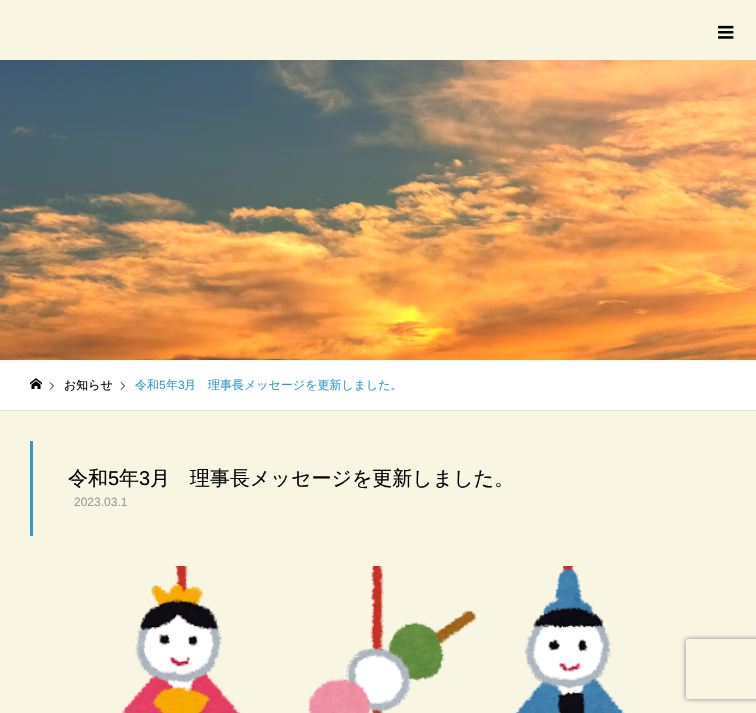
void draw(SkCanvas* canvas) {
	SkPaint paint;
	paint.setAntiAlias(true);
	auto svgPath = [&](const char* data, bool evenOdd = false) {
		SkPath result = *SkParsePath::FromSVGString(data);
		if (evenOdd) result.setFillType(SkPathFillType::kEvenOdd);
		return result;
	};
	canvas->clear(0xfff8f5e3);
	canvas->drawImageRect(SkImages::DeferredFromEncodedData(SkData::MakeFromFileName("img1.png")), SkRect::MakeXYWH(718, 25, 16, 14), SkSamplingOptions());
	canvas->drawImageRect(SkImages::DeferredFromEncodedData(SkData::MakeFromFileName("img2.png")), SkRect::MakeXYWH(0, 60, 756, 300), SkSamplingOptions());
	paint.setColor(0xffffffff);
	canvas->drawRect(SkRect::MakeXYWH(0, 360, 756, 50), paint);
	paint.setColor(0xffdddddd);
	canvas->drawRect(SkRect::MakeXYWH(0, 410, 756, 1), paint);
	canvas->drawImageRect(SkImages::DeferredFromEncodedData(SkData::MakeFromFileName("img3.png")), SkRect::MakeXYWH(30, 378, 12, 11), SkSamplingOptions());
	canvas->drawImageRect(SkImages::DeferredFromEncodedData(SkData::MakeFromFileName("img4.png")), SkRect::MakeXYWH(49, 382, 5, 8), SkSamplingOptions());
	SkFont f1(fontMgr->matchFamilyStyle("WenQuanYi Zen Hei", SkFontStyle(500, SkFontStyle::kNormal_Width, SkFontStyle::kUpright_Slant)), 12);
	f1.setSubpixel(true);
	paint.setColor(0xff000000);
	canvas->drawString("お知らせ", 64, 389, f1, paint);
	canvas->drawImageRect(SkImages::DeferredFromEncodedData(SkData::MakeFromFileName("img4.png")), SkRect::MakeXYWH(120, 382, 5, 8), SkSamplingOptions());
	paint.setColor(0xff3399cc);
	canvas->drawString("令和", 135, 389, f1, paint);
	SkFont f2(fontMgr->matchFamilyStyle("Liberation Sans", SkFontStyle::Normal()), 12);
	f2.setSubpixel(true);
	canvas->drawString("5", 159, 389, f2, paint);
	canvas->drawString("年", 166, 389, f1, paint);
	canvas->drawString("3", 178, 389, f2, paint);
	canvas->drawString("月　理事長メッセージを更新しました。", 184, 389, f1, paint);
	canvas->drawRect(SkRect::MakeXYWH(30, 441, 3, 95), paint);
	SkFont f3(fontMgr->matchFamilyStyle("WenQuanYi Zen Hei", SkFontStyle(500, SkFontStyle::kNormal_Width, SkFontStyle::kUpright_Slant)), 20);
	f3.setSubpixel(true);
	paint.setColor(0xff000000);
	canvas->drawString("令和", 68, 485, f3, paint);
	SkFont f4(fontMgr->matchFamilyStyle("Liberation Sans", SkFontStyle::Normal()), 20);
	f4.setSubpixel(true);
	canvas->drawString("5", 108, 485, f4, paint);
	canvas->drawString("年", 119, 485, f3, paint);
	canvas->drawString("3", 139, 485, f4, paint);
	canvas->drawString("月　理事長メッセージを更新しました。", 150, 485, f3, paint);
	paint.setColor(0xff999999);
	canvas->drawString("2023.03.1", 74, 506, f2, paint);
	canvas->drawImageRect(SkImages::DeferredFromEncodedData(SkData::MakeFromFileName("img5.png")), SkRect::MakeXYWH(122, 566, 503, 147), SkSamplingOptions());
	canvas->save();
	canvas->clipPath(svgPath("M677 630H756V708H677ZM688 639H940C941 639 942 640 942 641V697C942 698 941 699 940 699H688C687 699 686 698 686 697V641C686 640 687 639 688 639Z", true), true);
	paint.setColor(0xff808080);
	paint.setMaskFilter(SkMaskFilter::MakeBlur(kNormal_SkBlurStyle, 2.5));
	canvas->drawRoundRect(SkRect::MakeXYWH(686, 639, 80, 60), 2, 2, paint);
	paint.setMaskFilter(nullptr);
	canvas->restore();
}
